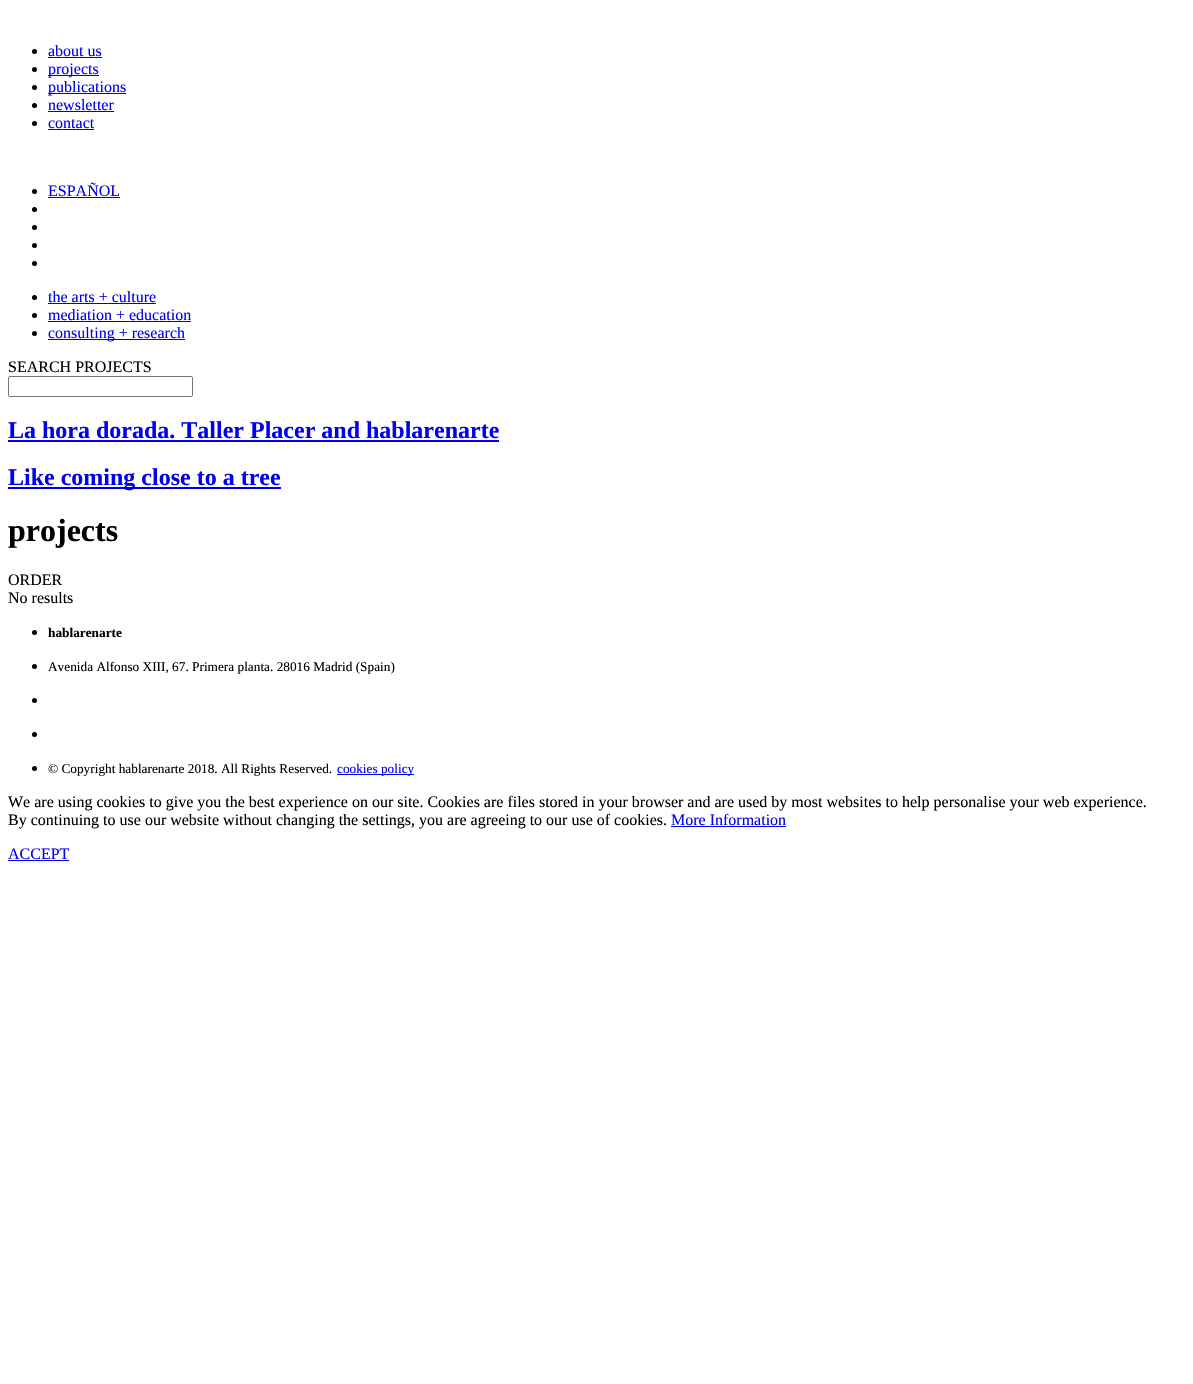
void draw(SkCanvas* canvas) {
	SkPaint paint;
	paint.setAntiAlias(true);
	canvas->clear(0xffffffff);
	paint.setColor(0xff000000);
	canvas->drawCircle(34.5, 51.5, 2.5, paint);
	SkFont f1(fontMgr->matchFamilyStyle("Liberation Serif", SkFontStyle::Normal()), 16);
	f1.setSubpixel(true);
	paint.setColor(0xff0000ee);
	canvas->drawString("about us", 48, 56, f1, paint);
	canvas->drawRect(SkRect::MakeXYWH(48, 57, 54, 1), paint);
	paint.setColor(0xff000000);
	canvas->drawCircle(34.5, 69.5, 2.5, paint);
	paint.setColor(0xff0000ee);
	canvas->drawRect(SkRect::MakeXYWH(48, 75, 51, 1), paint);
	canvas->drawString("projects", 48, 74, f1, paint);
	paint.setColor(0xff000000);
	canvas->drawCircle(34.5, 87.5, 2.5, paint);
	paint.setColor(0xff0000ee);
	canvas->drawRect(SkRect::MakeXYWH(48, 93, 78, 1), paint);
	canvas->drawString("publications", 48, 92, f1, paint);
	paint.setColor(0xff000000);
	canvas->drawCircle(34.5, 105.5, 2.5, paint);
	paint.setColor(0xff0000ee);
	canvas->drawString("newsletter", 48, 110, f1, paint);
	canvas->drawRect(SkRect::MakeXYWH(48, 111, 66, 1), paint);
	paint.setColor(0xff000000);
	canvas->drawCircle(34.5, 123.5, 2.5, paint);
	paint.setColor(0xff0000ee);
	canvas->drawString("contact", 48, 128, f1, paint);
	canvas->drawRect(SkRect::MakeXYWH(48, 129, 46, 1), paint);
	paint.setColor(0xff000000);
	canvas->drawCircle(34.5, 191.5, 2.5, paint);
	paint.setColor(0xff0000ee);
	canvas->drawString("ESPAÑOL", 48, 196, f1, paint);
	canvas->drawRect(SkRect::MakeXYWH(48, 197, 72, 1), paint);
	paint.setColor(0xff000000);
	canvas->drawCircle(34.5, 209.5, 2.5, paint);
	canvas->drawCircle(34.5, 227.5, 2.5, paint);
	canvas->drawCircle(34.5, 245.5, 2.5, paint);
	canvas->drawCircle(34.5, 263.5, 2.5, paint);
	canvas->drawCircle(34.5, 297.5, 2.5, paint);
	paint.setColor(0xff0000ee);
	canvas->drawString("the arts + culture", 48, 302, f1, paint);
	canvas->drawRect(SkRect::MakeXYWH(48, 303, 108, 1), paint);
	paint.setColor(0xff000000);
	canvas->drawCircle(34.5, 315.5, 2.5, paint);
	paint.setColor(0xff0000ee);
	canvas->drawString("mediation + education", 48, 320, f1, paint);
	canvas->drawRect(SkRect::MakeXYWH(48, 321, 143, 1), paint);
	paint.setColor(0xff000000);
	canvas->drawCircle(34.5, 333.5, 2.5, paint);
	paint.setColor(0xff0000ee);
	canvas->drawRect(SkRect::MakeXYWH(48, 339, 137, 1), paint);
	canvas->drawString("consulting + research", 48, 338, f1, paint);
	paint.setColor(0xff000000);
	canvas->drawString("SEARCH PROJECTS", 8, 372, f1, paint);
	paint.setStroke(true);
	paint.setStrokeWidth(1);
	paint.setColor(0xff767676);
	canvas->drawRoundRect(SkRect::MakeXYWH(8.5, 376.5, 184, 20), 1.5, 1.5, paint);
	SkFont f2(fontMgr->matchFamilyStyle("Liberation Serif", SkFontStyle::Bold()), 24);
	f2.setSubpixel(true);
	paint.setStroke(false);
	paint.setColor(0xff0000ee);
	canvas->drawString("La hora dorada. Taller Placer and hablarenarte", 8, 438, f2, paint);
	canvas->drawRect(SkRect::MakeXYWH(8, 440, 491, 2), paint);
	canvas->drawRect(SkRect::MakeXYWH(8, 487, 273, 2), paint);
	canvas->drawString("Like coming close to a tree", 8, 485, f2, paint);
	SkFont f3(fontMgr->matchFamilyStyle("Liberation Serif", SkFontStyle::Bold()), 32);
	f3.setSubpixel(true);
	paint.setColor(0xff000000);
	canvas->drawString("projects", 8, 541, f3, paint);
	canvas->drawString("ORDER", 8, 585, f1, paint);
	canvas->drawString("No results", 8, 603, f1, paint);
	canvas->drawCircle(34.5, 632.5, 2.5, paint);
	SkFont f4(fontMgr->matchFamilyStyle("Liberation Serif", SkFontStyle::Bold()), 13.3);
	f4.setSubpixel(true);
	canvas->drawString("hablarenarte", 48, 637, f4, paint);
	canvas->drawCircle(34.5, 666.5, 2.5, paint);
	SkFont f5(fontMgr->matchFamilyStyle("Liberation Serif", SkFontStyle::Normal()), 13.3);
	f5.setSubpixel(true);
	canvas->drawString("Avenida Alfonso XIII, 67. Primera planta. 28016 Madrid (Spain)", 48, 671, f5, paint);
	canvas->drawCircle(34.5, 700.5, 2.5, paint);
	canvas->drawCircle(34.5, 734.5, 2.5, paint);
	canvas->drawCircle(34.5, 768.5, 2.5, paint);
	canvas->drawString("© Copyright hablarenarte 2018. All Rights Reserved.", 48, 773, f5, paint);
	paint.setColor(0xff0000ee);
	canvas->drawRect(SkRect::MakeXYWH(337, 774, 77, 1), paint);
	canvas->drawString("cookies policy", 337, 773, f5, paint);
	paint.setColor(0xff000000);
	canvas->drawString("We are using cookies to give you the best experience on our site. Cookies are files stored in your browser and are used by most websites to help personalise your web experience.", 8, 807, f1, paint);
	canvas->drawString("By continuing to use our website without changing the settings, you are agreeing to our use of cookies.", 8, 825, f1, paint);
	paint.setColor(0xff0000ee);
	canvas->drawString("More Information", 671, 825, f1, paint);
	canvas->drawRect(SkRect::MakeXYWH(671, 826, 115, 1), paint);
	canvas->drawString("ACCEPT", 8, 859, f1, paint);
	canvas->drawRect(SkRect::MakeXYWH(8, 860, 61, 1), paint);
}
